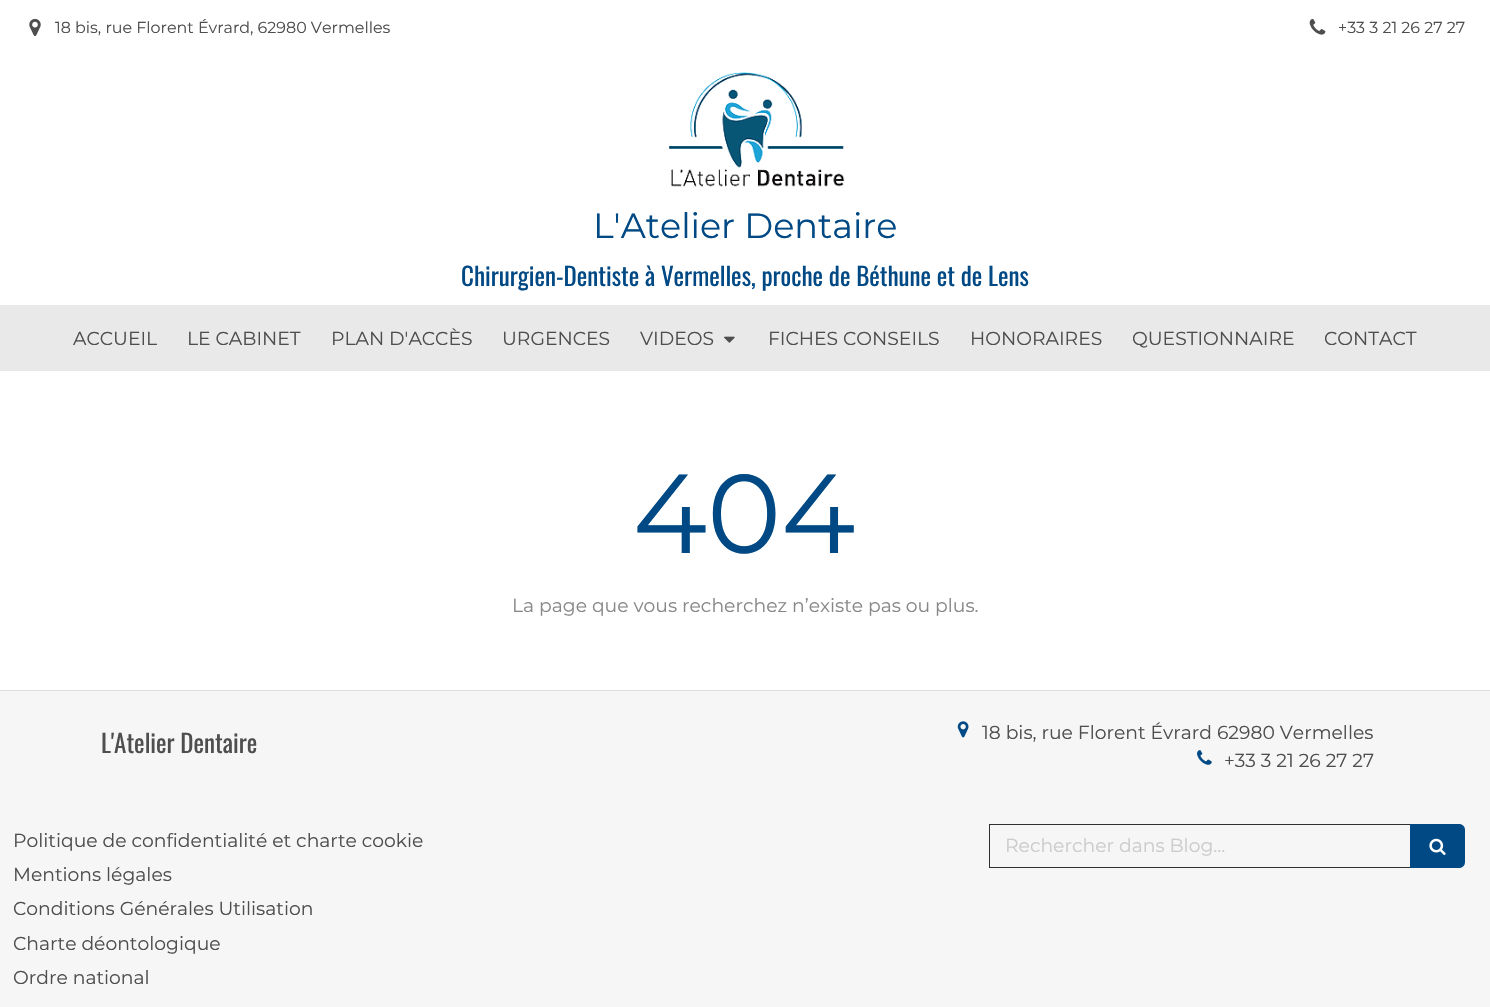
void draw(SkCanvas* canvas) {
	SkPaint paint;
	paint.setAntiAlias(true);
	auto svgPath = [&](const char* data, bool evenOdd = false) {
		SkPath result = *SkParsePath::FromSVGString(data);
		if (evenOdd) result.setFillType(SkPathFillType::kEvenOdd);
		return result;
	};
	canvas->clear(0xffffffff);
	canvas->drawImageRect(SkImages::DeferredFromEncodedData(SkData::MakeFromFileName("img1.png")), SkRect::MakeXYWH(29, 18, 12, 18), SkSamplingOptions());
	SkFont f1(fontMgr->matchFamilyStyle("Montserrat", SkFontStyle::Normal()), 15.9);
	f1.setSubpixel(true);
	paint.setColor(0xff4e4e4e);
	canvas->drawString("18 bis, rue Florent Évrard, 62980 Vermelles", 55, 33, f1, paint);
	canvas->drawImageRect(SkImages::DeferredFromEncodedData(SkData::MakeFromFileName("img2.png")), SkRect::MakeXYWH(1309, 19, 17, 16), SkSamplingOptions());
	canvas->drawString("+33 3 21 26 27 27", 1338, 33, f1, paint);
	canvas->drawImageRect(SkImages::DeferredFromEncodedData(SkData::MakeFromFileName("img3.png")), SkRect::MakeXYWH(669, 72, 176, 115), SkSamplingOptions());
	SkFont f2(fontMgr->matchFamilyStyle("Montserrat", SkFontStyle::Normal()), 35);
	f2.setSubpixel(true);
	paint.setColor(0xff004984);
	canvas->drawString("L'Atelier Dentaire", 593, 238, f2, paint);
	SkFont f3(fontMgr->matchFamilyStyle("Oswald", SkFontStyle::Normal()), 25);
	f3.setSubpixel(true);
	canvas->drawString("Chirurgien-Dentiste à Vermelles, proche de Béthune et de Lens", 461, 286, f3, paint);
	paint.setColor(0xffe9e9e9);
	canvas->drawRect(SkRect::MakeXYWH(0, 305, 1490, 66), paint);
	SkFont f4(fontMgr->matchFamilyStyle("Montserrat", SkFontStyle::Normal()), 18.75);
	f4.setSubpixel(true);
	paint.setColor(0xff4e4e4e);
	canvas->drawString("ACCUEIL", 73, 345, f4, paint);
	canvas->drawString("LE CABINET", 187, 345, f4, paint);
	canvas->drawString("PLAN D'ACCÈS", 331, 345, f4, paint);
	canvas->drawString("URGENCES", 502, 345, f4, paint);
	canvas->drawString("VIDEOS", 640, 345, f4, paint);
	canvas->drawImageRect(SkImages::DeferredFromEncodedData(SkData::MakeFromFileName("img4.png")), SkRect::MakeXYWH(724, 336, 11, 7), SkSamplingOptions());
	canvas->drawString("FICHES CONSEILS", 768, 345, f4, paint);
	canvas->drawString("HONORAIRES", 970, 345, f4, paint);
	canvas->drawString("QUESTIONNAIRE", 1132, 345, f4, paint);
	canvas->drawString("CONTACT", 1324, 345, f4, paint);
	SkFont f5(fontMgr->matchFamilyStyle("Montserrat", SkFontStyle::Normal()), 112);
	f5.setSubpixel(true);
	paint.setColor(0xff004984);
	canvas->drawString("404", 633, 553, f5, paint);
	paint.setColor(0xff888888);
	canvas->drawString("La page que vous recherchez n’existe pas ou plus.", 512, 612, f4, paint);
	paint.setColor(0xffdddddd);
	canvas->drawRect(SkRect::MakeXYWH(0, 690, 1490, 1), paint);
	paint.setColor(0xfff6f6f6);
	canvas->drawRect(SkRect::MakeXYWH(0, 691, 1490, 316), paint);
	paint.setColor(0xff4e4e4e);
	canvas->drawString("L'Atelier Dentaire", 101, 753, f3, paint);
	canvas->drawImageRect(SkImages::DeferredFromEncodedData(SkData::MakeFromFileName("img5.png")), SkRect::MakeXYWH(957, 721, 12, 17), SkSamplingOptions());
	canvas->drawString("18 bis, rue Florent Évrard 62980 Vermelles", 982, 739, f4, paint);
	canvas->drawImageRect(SkImages::DeferredFromEncodedData(SkData::MakeFromFileName("img6.png")), SkRect::MakeXYWH(1197, 750, 15, 15), SkSamplingOptions());
	canvas->drawString("+33 3 21 26 27 27", 1224, 767, f4, paint);
	canvas->drawString("Politique de confidentialité et charte cookie", 13, 847, f4, paint);
	canvas->drawString("Mentions légales", 13, 881, f4, paint);
	canvas->drawString("Conditions Générales Utilisation", 13, 915, f4, paint);
	canvas->drawString("Charte déontologique", 13, 950, f4, paint);
	canvas->drawString("Ordre national", 13, 984, f4, paint);
	paint.setStroke(true);
	paint.setStrokeWidth(1);
	paint.setColor(0xff2f2f2f);
	canvas->drawRect(SkRect::MakeXYWH(989.5, 824.5, 421, 43), paint);
	paint.setStroke(false);
	paint.setColor(0xffcccccc);
	canvas->drawString("Rechercher dans Blog...", 1005, 852, f4, paint);
	paint.setColor(0xff004984);
	canvas->drawPath(svgPath("M1410 824H1459C1462.5 824 1465 826.5 1465 830V862C1465 865.5 1462.5 868 1459 868H1410Z"), paint);
	canvas->drawImageRect(SkImages::DeferredFromEncodedData(SkData::MakeFromFileName("img7.png")), SkRect::MakeXYWH(1429, 838, 17, 17), SkSamplingOptions());
}
